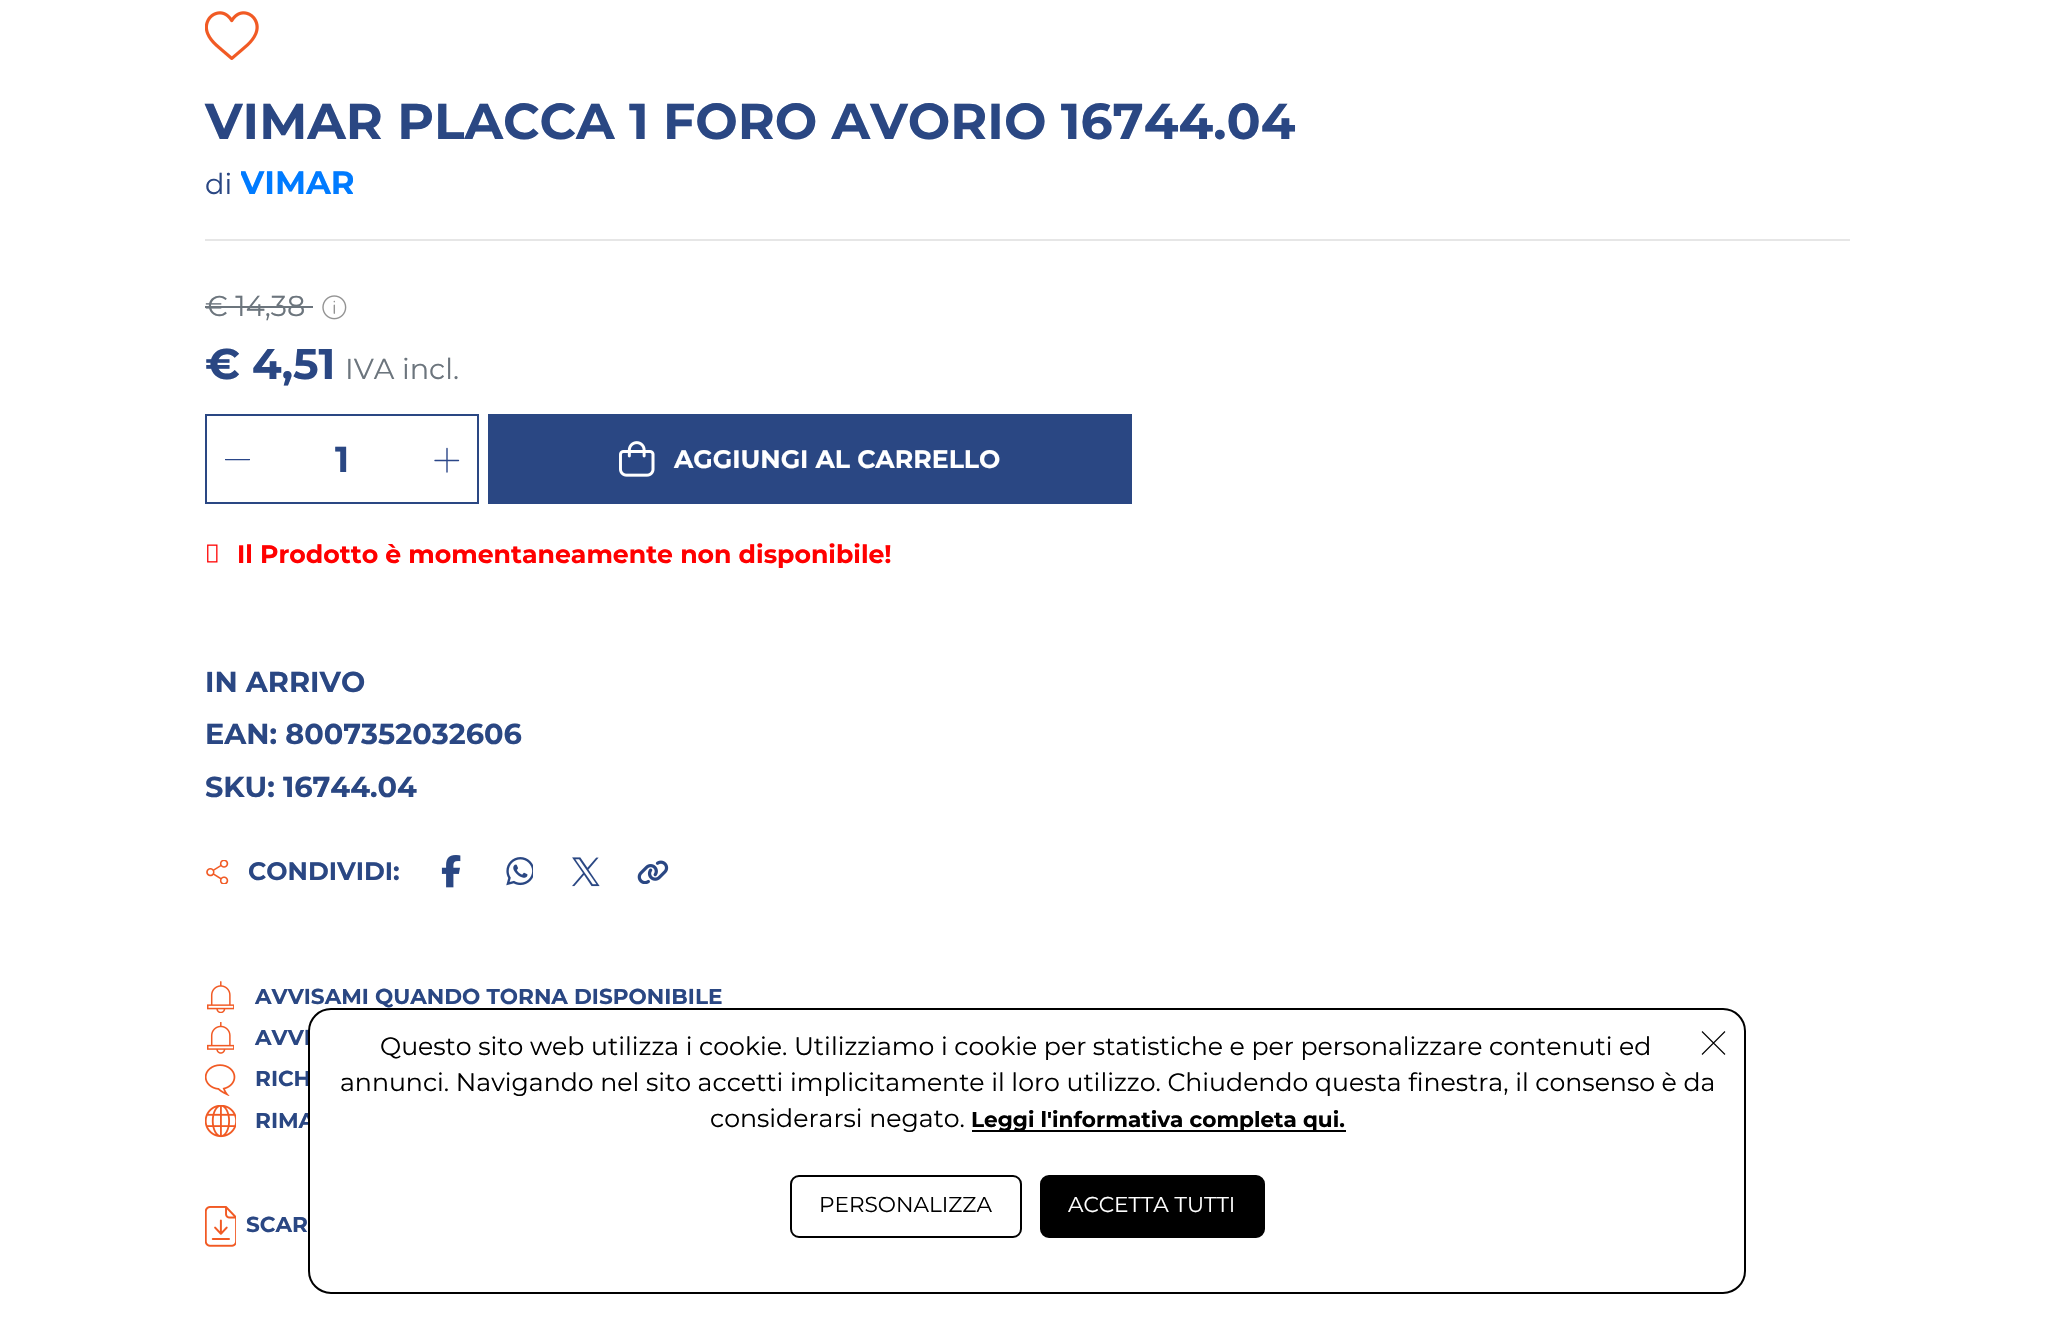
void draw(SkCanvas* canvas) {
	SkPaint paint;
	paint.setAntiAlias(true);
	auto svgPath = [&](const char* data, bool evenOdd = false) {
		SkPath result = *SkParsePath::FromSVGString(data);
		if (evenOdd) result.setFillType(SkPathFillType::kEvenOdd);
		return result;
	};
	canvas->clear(0xffffffff);
	canvas->drawImageRect(SkImages::DeferredFromEncodedData(SkData::MakeFromFileName("img1.png")), SkRect::MakeXYWH(205, 11, 54, 49), SkSamplingOptions());
	SkFont f1(fontMgr->matchFamilyStyle("Montserrat", SkFontStyle::Bold()), 50.4);
	f1.setSubpixel(true);
	paint.setColor(0xff2a4783);
	canvas->drawString("VIMAR PLACCA 1 FORO AVORIO 16744.04", 205, 139, f1, paint);
	SkFont f2(fontMgr->matchFamilyStyle("Montserrat", SkFontStyle::Normal()), 28.75);
	f2.setSubpixel(true);
	canvas->drawString("di", 205, 194, f2, paint);
	canvas->save();
	canvas->clipRect(SkRect::MakeXYWH(241, 164, 112, 39));
	SkFont f3(fontMgr->matchFamilyStyle("Montserrat", SkFontStyle::Bold()), 32.5);
	f3.setSubpixel(true);
	paint.setColor(0xff007bff);
	canvas->drawString("VIMAR", 240, 194, f3, paint);
	canvas->restore();
	paint.setColor(0xffe6e6e6);
	canvas->drawRect(SkRect::MakeXYWH(205, 239, 1645, 2), paint);
	paint.setColor(0xff6c757d);
	canvas->drawString("€ 14,38", 205, 316, f2, paint);
	canvas->drawRect(SkRect::MakeXYWH(205, 306, 108, 2), paint);
	canvas->drawImageRect(SkImages::DeferredFromEncodedData(SkData::MakeFromFileName("img2.png")), SkRect::MakeXYWH(322, 295, 25, 25), SkSamplingOptions());
	SkFont f4(fontMgr->matchFamilyStyle("Montserrat", SkFontStyle::Bold()), 43);
	f4.setSubpixel(true);
	paint.setColor(0xff2a4783);
	canvas->drawString("€ 4,51", 205, 379, f4, paint);
	paint.setColor(0xff6c757d);
	canvas->drawString("IVA incl.", 345, 379, f2, paint);
	paint.setStroke(true);
	paint.setStrokeWidth(2);
	paint.setColor(0xff2a4783);
	canvas->drawRect(SkRect::MakeXYWH(206, 415, 272, 88), paint);
	canvas->save();
	canvas->clipRect(SkRect::MakeXYWH(225, 459, 25, 2));
	paint.setStrokeWidth(1.4);
	paint.setStrokeCap(SkPaint::kRound_Cap);
	paint.setStrokeJoin(SkPaint::kRound_Join);
	paint.setColor(0xff2a4688);
	canvas->drawPath(svgPath("M249.5 459.5H225.5"), paint);
	canvas->restore();
	SkFont f5(fontMgr->matchFamilyStyle("Montserrat", SkFontStyle::Bold()), 36);
	f5.setSubpixel(true);
	paint.setStroke(false);
	paint.setColor(0xff2a4783);
	canvas->drawString("1", 335, 472, f5, paint);
	paint.setStroke(true);
	paint.setColor(0xff2a4688);
	canvas->drawPath(svgPath("M458.5 460.5H435M447 448.5V472"), paint);
	paint.setStroke(false);
	paint.setColor(0xff2a4783);
	canvas->drawRect(SkRect::MakeXYWH(488, 414, 644, 90), paint);
	canvas->drawImageRect(SkImages::DeferredFromEncodedData(SkData::MakeFromFileName("img3.png")), SkRect::MakeXYWH(619, 441, 36, 36), SkSamplingOptions());
	SkFont f6(fontMgr->matchFamilyStyle("Montserrat", SkFontStyle::Bold()), 25.2);
	f6.setSubpixel(true);
	paint.setColor(0xffffffff);
	canvas->drawString("AGGIUNGI AL CARRELLO", 674, 468, f6, paint);
	canvas->drawImageRect(SkImages::DeferredFromEncodedData(SkData::MakeFromFileName("img4.png")), SkRect::MakeXYWH(207, 544, 11, 19), SkSamplingOptions());
	paint.setColor(0xffff0000);
	canvas->drawString("Il Prodotto è momentaneamente non disponibile!", 237, 563, f6, paint);
	SkFont f7(fontMgr->matchFamilyStyle("Montserrat", SkFontStyle::Bold()), 28.75);
	f7.setSubpixel(true);
	paint.setColor(0xff2a4783);
	canvas->drawString("IN ARRIVO", 205, 692, f7, paint);
	canvas->drawString("EAN: 8007352032606", 205, 744, f7, paint);
	canvas->drawString("SKU: 16744.04", 205, 797, f7, paint);
	canvas->drawImageRect(SkImages::DeferredFromEncodedData(SkData::MakeFromFileName("img5.png")), SkRect::MakeXYWH(206, 860, 23, 24), SkSamplingOptions());
	canvas->drawString("CONDIVIDI:", 248, 880, f6, paint);
	canvas->drawImageRect(SkImages::DeferredFromEncodedData(SkData::MakeFromFileName("img6.png")), SkRect::MakeXYWH(441, 855, 20, 33), SkSamplingOptions());
	canvas->drawImageRect(SkImages::DeferredFromEncodedData(SkData::MakeFromFileName("img7.png")), SkRect::MakeXYWH(506, 857, 27, 29), SkSamplingOptions());
	canvas->drawImageRect(SkImages::DeferredFromEncodedData(SkData::MakeFromFileName("img8.png")), SkRect::MakeXYWH(572, 857, 28, 30), SkSamplingOptions());
	canvas->drawImageRect(SkImages::DeferredFromEncodedData(SkData::MakeFromFileName("img9.png")), SkRect::MakeXYWH(637, 860, 32, 24), SkSamplingOptions());
	canvas->drawImageRect(SkImages::DeferredFromEncodedData(SkData::MakeFromFileName("img10.png")), SkRect::MakeXYWH(207, 981, 27, 32), SkSamplingOptions());
	SkFont f8(fontMgr->matchFamilyStyle("Montserrat", SkFontStyle::Bold()), 21.6);
	f8.setSubpixel(true);
	canvas->drawString("AVVISAMI QUANDO TORNA DISPONIBILE", 255, 1004, f8, paint);
	canvas->drawImageRect(SkImages::DeferredFromEncodedData(SkData::MakeFromFileName("img11.png")), SkRect::MakeXYWH(207, 1022, 27, 32), SkSamplingOptions());
	canvas->drawString("AVVI", 255, 1045, f8, paint);
	canvas->drawImageRect(SkImages::DeferredFromEncodedData(SkData::MakeFromFileName("img12.png")), SkRect::MakeXYWH(205, 1064, 31, 32), SkSamplingOptions());
	canvas->drawString("RICH", 255, 1086, f8, paint);
	canvas->drawImageRect(SkImages::DeferredFromEncodedData(SkData::MakeFromFileName("img13.png")), SkRect::MakeXYWH(205, 1105, 31, 33), SkSamplingOptions());
	canvas->drawString("RIMA", 255, 1128, f8, paint);
	canvas->drawImageRect(SkImages::DeferredFromEncodedData(SkData::MakeFromFileName("img14.png")), SkRect::MakeXYWH(205, 1206, 31, 41), SkSamplingOptions());
	canvas->drawString("SCAR", 246, 1232, f8, paint);
	paint.setColor(0xffffffff);
	canvas->drawRoundRect(SkRect::MakeXYWH(309, 1009, 1436, 284), 22, 22, paint);
	paint.setStroke(true);
	paint.setStrokeWidth(2);
	paint.setStrokeCap(SkPaint::kButt_Cap);
	paint.setStrokeJoin(SkPaint::kMiter_Join);
	paint.setColor(0xff000000);
	canvas->drawRoundRect(SkRect::MakeXYWH(309, 1009, 1436, 284), 22, 22, paint);
	SkFont f9(fontMgr->matchFamilyStyle("Montserrat", SkFontStyle::Normal()), 25.2);
	f9.setSubpixel(true);
	paint.setStroke(false);
	canvas->drawString("Questo sito web utilizza i cookie. Utilizziamo i cookie per statistiche e per personalizzare contenuti ed", 380, 1055, f9, paint);
	paint.setStroke(true);
	paint.setStrokeWidth(1.1);
	canvas->drawPath(svgPath("M1702 1031.5L1725 1054.5M1725 1031.5L1702 1054.5"), paint);
	paint.setStroke(false);
	canvas->drawString("annunci. Navigando nel sito accetti implicitamente il loro utilizzo. Chiudendo questa finestra, il consenso è da", 340, 1091, f9, paint);
	canvas->drawString("considerarsi negato.", 710, 1127, f9, paint);
	canvas->drawRect(SkRect::MakeXYWH(972, 1130, 374, 2), paint);
	canvas->drawString("Leggi l'informativa completa qui.", 971, 1127, f8, paint);
	paint.setStroke(true);
	paint.setStrokeWidth(2);
	canvas->drawRoundRect(SkRect::MakeXYWH(791, 1176, 230, 61), 8, 8, paint);
	SkFont f10(fontMgr->matchFamilyStyle("Montserrat", SkFontStyle::Normal()), 21.6);
	f10.setSubpixel(true);
	paint.setStroke(false);
	canvas->drawString("PERSONALIZZA", 819, 1212, f10, paint);
	canvas->drawRoundRect(SkRect::MakeXYWH(1041, 1176, 223, 61), 8, 8, paint);
	paint.setStroke(true);
	canvas->drawRoundRect(SkRect::MakeXYWH(1041, 1176, 223, 61), 8, 8, paint);
	paint.setStroke(false);
	paint.setColor(0xffffffff);
	canvas->drawString("ACCETTA TUTTI", 1068, 1212, f10, paint);
}
